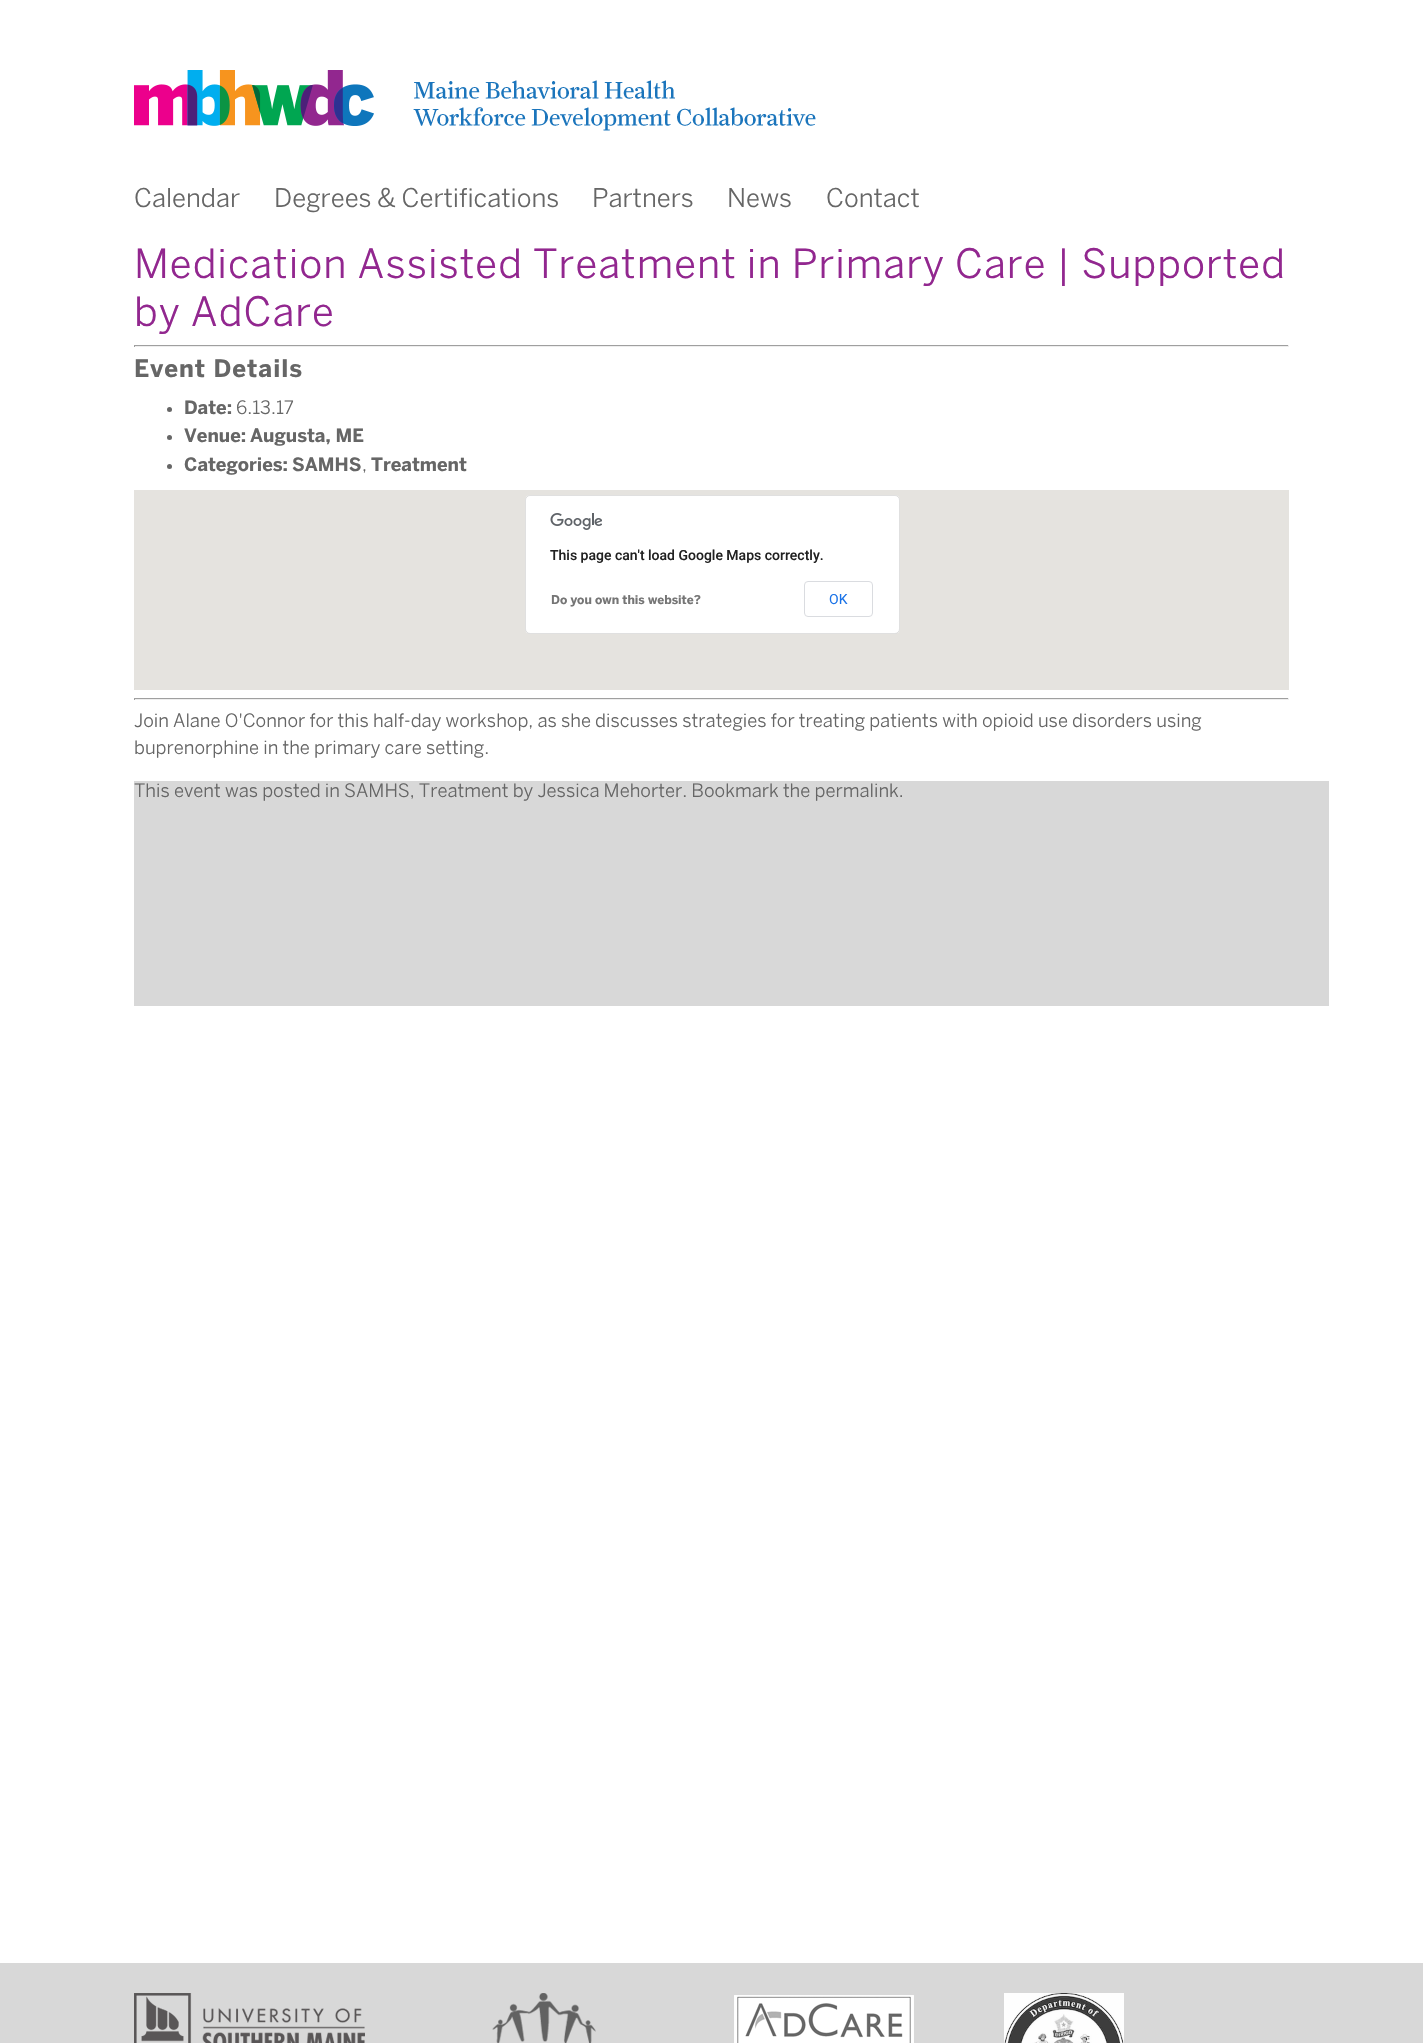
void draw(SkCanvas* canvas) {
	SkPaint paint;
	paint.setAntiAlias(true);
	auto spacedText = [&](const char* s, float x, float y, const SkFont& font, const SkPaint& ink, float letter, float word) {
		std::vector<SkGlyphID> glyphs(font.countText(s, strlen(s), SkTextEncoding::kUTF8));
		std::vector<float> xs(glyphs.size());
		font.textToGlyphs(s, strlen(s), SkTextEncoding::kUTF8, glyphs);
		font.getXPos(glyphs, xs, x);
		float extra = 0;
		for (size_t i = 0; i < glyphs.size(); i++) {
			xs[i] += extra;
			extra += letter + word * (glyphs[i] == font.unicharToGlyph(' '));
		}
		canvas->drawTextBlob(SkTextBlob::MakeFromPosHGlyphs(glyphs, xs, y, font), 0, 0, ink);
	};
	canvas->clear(0xffffffff);
	canvas->drawImageRect(SkImages::DeferredFromEncodedData(SkData::MakeFromFileName("img1.png")), SkRect::MakeXYWH(134, 70, 682, 61), SkSamplingOptions());
	SkFont f1(fontMgr->matchFamilyStyle("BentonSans", SkFontStyle::Normal()), 25.6);
	f1.setSubpixel(true);
	paint.setColor(0xff666666);
	canvas->drawString("Calendar", 134, 207, f1, paint);
	canvas->drawString("Degrees & Certifications", 274, 207, f1, paint);
	canvas->drawString("Partners", 592, 207, f1, paint);
	canvas->drawString("News", 727, 207, f1, paint);
	canvas->drawString("Contact", 826, 207, f1, paint);
	SkFont f2(fontMgr->matchFamilyStyle("BentonSans", SkFontStyle::Normal()), 40);
	f2.setSubpixel(true);
	paint.setColor(0xff92278f);
	spacedText("Medication Assisted Treatment in Primary Care | Supported", 134, 278, f2, paint, 1, 0);
	spacedText("by AdCare", 134, 326, f2, paint, 1, 0);
	paint.setColor(0xff9f9f9f);
	canvas->drawRect(SkRect::MakeXYWH(134, 345, 1155, 1), paint);
	paint.setColor(0xffeeeeee);
	canvas->drawRect(SkRect::MakeXYWH(1288, 345, 1, 2), paint);
	canvas->drawRect(SkRect::MakeXYWH(134, 346, 1155, 1), paint);
	paint.setColor(0xff9f9f9f);
	canvas->drawRect(SkRect::MakeXYWH(134, 345, 1, 2), paint);
	SkFont f3(fontMgr->matchFamilyStyle("BentonSans", SkFontStyle::Bold()), 24);
	f3.setSubpixel(true);
	paint.setColor(0xff666666);
	spacedText("Event Details", 134, 377, f3, paint, 1, 0);
	canvas->drawCircle(169.5, 409.5, 2.5, paint);
	SkFont f4(fontMgr->matchFamilyStyle("BentonSans", SkFontStyle::Bold()), 18.4);
	f4.setSubpixel(true);
	canvas->drawString("Date:", 184, 414, f4, paint);
	SkFont f5(fontMgr->matchFamilyStyle("BentonSans", SkFontStyle::Normal()), 18.4);
	f5.setSubpixel(true);
	canvas->drawString("6.13.17", 236, 414, f5, paint);
	canvas->drawCircle(169.5, 437.5, 2.5, paint);
	canvas->drawString("Venue:", 184, 442, f4, paint);
	canvas->drawString("Augusta, ME", 250, 442, f4, paint);
	canvas->drawCircle(169.5, 466.5, 2.5, paint);
	canvas->drawString("Categories:", 184, 471, f4, paint);
	canvas->drawString("SAMHS", 292, 471, f4, paint);
	canvas->drawString("Treatment", 371, 471, f4, paint);
	canvas->drawString(",", 362, 471, f5, paint);
	paint.setColor(0xffe5e3df);
	canvas->drawRect(SkRect::MakeXYWH(134, 490, 1155, 200), paint);
	paint.setColor(0xffffffff);
	canvas->drawRoundRect(SkRect::MakeXYWH(525, 495, 375, 139), 5, 5, paint);
	paint.setStroke(true);
	paint.setStrokeWidth(1);
	paint.setColor(0x1f000000);
	canvas->drawRoundRect(SkRect::MakeXYWH(525.5, 495.5, 374, 138), 4.5, 4.5, paint);
	canvas->drawImageRect(SkImages::DeferredFromEncodedData(SkData::MakeFromFileName("img2.png")), SkRect::MakeXYWH(550, 513, 52, 17), SkSamplingOptions());
	SkFont f6(fontMgr->matchFamilyStyle("Roboto", SkFontStyle(500, SkFontStyle::kNormal_Width, SkFontStyle::kUpright_Slant)), 14);
	f6.setSubpixel(true);
	paint.setStroke(false);
	paint.setColor(0xff212121);
	canvas->drawString("This page can't load Google Maps correctly.", 550, 560, f6, paint);
	SkFont f7(fontMgr->matchFamilyStyle("BentonSans", SkFontStyle::Bold()), 12);
	f7.setSubpixel(true);
	paint.setColor(0xff757575);
	canvas->drawString("Do you own this website?", 551, 604, f7, paint);
	paint.setStroke(true);
	paint.setColor(0xffdadce0);
	canvas->drawRoundRect(SkRect::MakeXYWH(804.5, 581.5, 68, 35), 3.5, 3.5, paint);
	SkFont f8(fontMgr->matchFamilyStyle("Roboto", SkFontStyle::Normal()), 14);
	f8.setSubpixel(true);
	paint.setStroke(false);
	paint.setColor(0xff1a73e8);
	canvas->drawString("OK", 829, 604, f8, paint);
	paint.setColor(0xff9f9f9f);
	canvas->drawRect(SkRect::MakeXYWH(134, 698, 1155, 1), paint);
	paint.setColor(0xffeeeeee);
	canvas->drawRect(SkRect::MakeXYWH(1288, 698, 1, 2), paint);
	canvas->drawRect(SkRect::MakeXYWH(134, 699, 1155, 1), paint);
	paint.setColor(0xff9f9f9f);
	canvas->drawRect(SkRect::MakeXYWH(134, 698, 1, 2), paint);
	paint.setColor(0xff666666);
	canvas->drawString("Join Alane O'Connor for this half-day workshop, as she discusses strategies for treating patients with opioid use disorders using", 134, 727, f5, paint);
	canvas->drawString("buprenorphine in the primary care setting.", 134, 754, f5, paint);
	paint.setColor(0xffd8d8d8);
	canvas->drawRect(SkRect::MakeXYWH(134, 781, 1195, 225), paint);
	paint.setColor(0xff666666);
	canvas->drawString("This event was posted in SAMHS, Treatment by Jessica Mehorter. Bookmark the permalink.", 134, 797, f5, paint);
	paint.setColor(0xffd8d8d8);
	canvas->drawRect(SkRect::MakeXYWH(0, 1963, 1423, 80), paint);
	canvas->drawImageRect(SkImages::DeferredFromEncodedData(SkData::MakeFromFileName("img3.png")), SkRect::MakeXYWH(134, 1993, 231, 50), SkSamplingOptions());
	canvas->drawImageRect(SkImages::DeferredFromEncodedData(SkData::MakeFromFileName("img4.png")), SkRect::MakeXYWH(492, 1993, 104, 50), SkSamplingOptions());
	canvas->drawImageRect(SkImages::DeferredFromEncodedData(SkData::MakeFromFileName("img5.png")), SkRect::MakeXYWH(734, 1995, 180, 48), SkSamplingOptions());
	canvas->drawImageRect(SkImages::DeferredFromEncodedData(SkData::MakeFromFileName("img6.png")), SkRect::MakeXYWH(1004, 1993, 120, 50), SkSamplingOptions());
}
